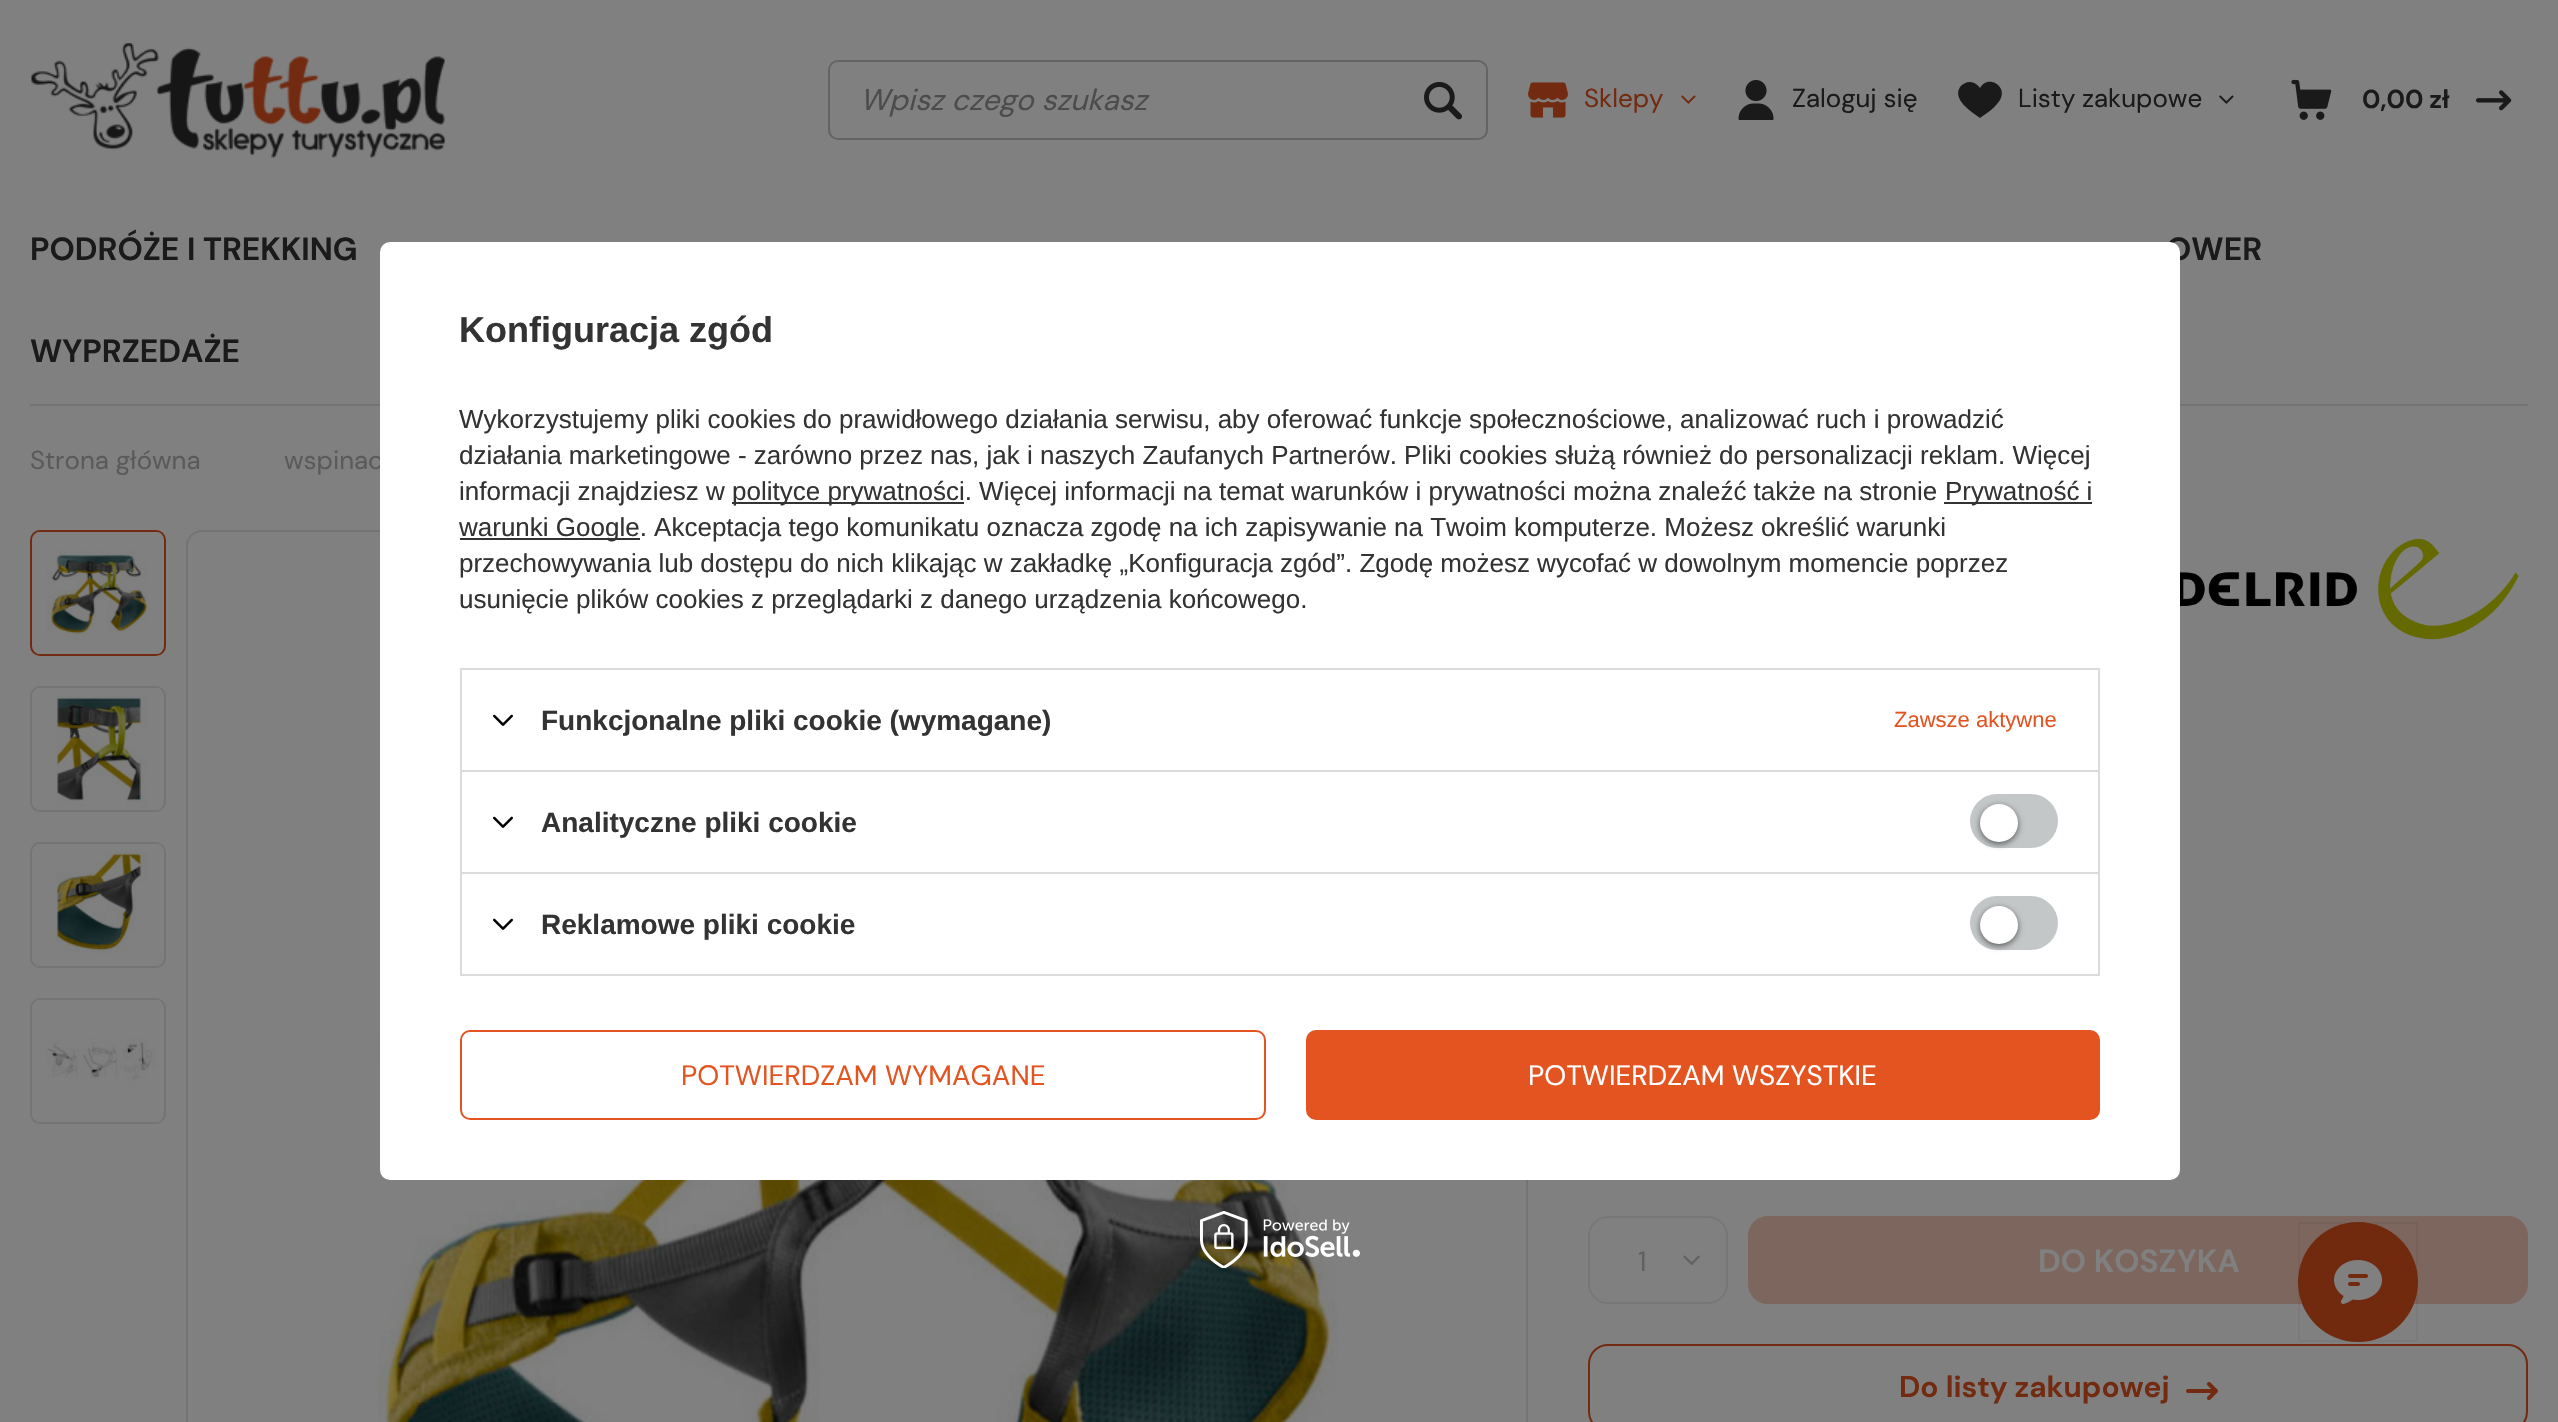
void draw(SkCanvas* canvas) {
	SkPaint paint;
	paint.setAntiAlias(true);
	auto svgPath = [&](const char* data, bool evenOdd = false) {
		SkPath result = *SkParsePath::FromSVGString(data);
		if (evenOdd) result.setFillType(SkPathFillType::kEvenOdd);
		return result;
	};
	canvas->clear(0xff808080);
	canvas->drawImageRect(SkImages::DeferredFromEncodedData(SkData::MakeFromFileName("img1.png")), SkRect::MakeXYWH(31, 43, 414, 115), SkSamplingOptions());
	paint.setStroke(true);
	paint.setStrokeWidth(2);
	paint.setColor(0xff626464);
	canvas->drawRoundRect(SkRect::MakeXYWH(829, 61, 658, 78), 9, 9, paint);
	SkFont f1(fontMgr->matchFamilyStyle("DM Sans", SkFontStyle::Italic()), 30);
	f1.setSubpixel(true);
	paint.setStroke(false);
	paint.setColor(0xff4c4c4c);
	canvas->drawString("Wpisz czego szukasz", 860, 110, f1, paint);
	canvas->drawImageRect(SkImages::DeferredFromEncodedData(SkData::MakeFromFileName("img2.png")), SkRect::MakeXYWH(1424, 82, 38, 38), SkSamplingOptions());
	canvas->drawImageRect(SkImages::DeferredFromEncodedData(SkData::MakeFromFileName("img3.png")), SkRect::MakeXYWH(1528, 82, 40, 36), SkSamplingOptions());
	SkFont f2(fontMgr->matchFamilyStyle("DM Sans", SkFontStyle::Normal()), 26);
	f2.setSubpixel(true);
	paint.setColor(0xff722a10);
	canvas->drawString("Sklepy", 1584, 107, f2, paint);
	canvas->drawImageRect(SkImages::DeferredFromEncodedData(SkData::MakeFromFileName("img4.png")), SkRect::MakeXYWH(1681, 95, 15, 9), SkSamplingOptions());
	canvas->drawImageRect(SkImages::DeferredFromEncodedData(SkData::MakeFromFileName("img5.png")), SkRect::MakeXYWH(1738, 80, 36, 40), SkSamplingOptions());
	paint.setColor(0xff1a1a1a);
	canvas->drawString("Zaloguj się", 1792, 107, f2, paint);
	canvas->drawPath(svgPath("M1970 82C1974 82 1978 85 1980 88C1988 74 2008 86 2000 100C1995 108 1987 113 1980 118C1972 112 1952 100 1960 87C1962 84 1966 82 1970 82Z"), paint);
	canvas->drawString("Listy zakupowe", 2018, 107, f2, paint);
	canvas->drawImageRect(SkImages::DeferredFromEncodedData(SkData::MakeFromFileName("img6.png")), SkRect::MakeXYWH(2219, 95, 15, 9), SkSamplingOptions());
	canvas->drawImageRect(SkImages::DeferredFromEncodedData(SkData::MakeFromFileName("img7.png")), SkRect::MakeXYWH(2291, 79, 41, 41), SkSamplingOptions());
	SkFont f3(fontMgr->matchFamilyStyle("DM Sans", SkFontStyle::Bold()), 26);
	f3.setSubpixel(true);
	canvas->drawString("0,00 zł", 2362, 108, f3, paint);
	canvas->drawImageRect(SkImages::DeferredFromEncodedData(SkData::MakeFromFileName("img8.png")), SkRect::MakeXYWH(2476, 90, 36, 21), SkSamplingOptions());
	paint.setColor(0xff747474);
	canvas->drawRect(SkRect::MakeXYWH(30, 404, 2498, 2), paint);
	SkFont f4(fontMgr->matchFamilyStyle("DM Sans", SkFontStyle::Bold()), 32);
	f4.setSubpixel(true);
	paint.setColor(0xff1a1a1a);
	canvas->drawString("PODRÓŻE I TREKKING", 30, 260, f4, paint);
	canvas->drawString("OWER", 2166, 260, f4, paint);
	canvas->drawString("WYPRZEDAŻE", 30, 362, f4, paint);
	paint.setColor(0xff5a5a5a);
	canvas->drawString("Strona główna", 30, 469, f2, paint);
	canvas->drawString("wspinac", 284, 469, f2, paint);
	paint.setStroke(true);
	paint.setColor(0xff722a10);
	canvas->drawRoundRect(SkRect::MakeXYWH(31, 531, 134, 124), 9, 9, paint);
	canvas->drawImageRect(SkImages::DeferredFromEncodedData(SkData::MakeFromFileName("img9.png")), SkRect::MakeXYWH(36, 532, 126, 122), SkSamplingOptions());
	paint.setColor(0xff747474);
	canvas->drawRoundRect(SkRect::MakeXYWH(31, 687, 134, 124), 9, 9, paint);
	canvas->drawImageRect(SkImages::DeferredFromEncodedData(SkData::MakeFromFileName("img10.png")), SkRect::MakeXYWH(36, 688, 126, 122), SkSamplingOptions());
	canvas->drawRoundRect(SkRect::MakeXYWH(31, 843, 134, 124), 9, 9, paint);
	canvas->drawImageRect(SkImages::DeferredFromEncodedData(SkData::MakeFromFileName("img11.png")), SkRect::MakeXYWH(36, 844, 126, 122), SkSamplingOptions());
	canvas->drawRoundRect(SkRect::MakeXYWH(31, 999, 134, 124), 9, 9, paint);
	canvas->drawImageRect(SkImages::DeferredFromEncodedData(SkData::MakeFromFileName("img12.png")), SkRect::MakeXYWH(36, 1000, 126, 122), SkSamplingOptions());
	canvas->drawRoundRect(SkRect::MakeXYWH(187, 531, 1340, 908), 15, 15, paint);
	canvas->drawImageRect(SkImages::DeferredFromEncodedData(SkData::MakeFromFileName("img13.png")), SkRect::MakeXYWH(378, 820, 961, 602), SkSamplingOptions());
	canvas->drawImageRect(SkImages::DeferredFromEncodedData(SkData::MakeFromFileName("img14.png")), SkRect::MakeXYWH(2180, 538, 339, 102), SkSamplingOptions());
	paint.setColor(0xff777778);
	canvas->drawRoundRect(SkRect::MakeXYWH(1589, 1217, 138, 86), 19, 19, paint);
	canvas->drawImageRect(SkImages::DeferredFromEncodedData(SkData::MakeFromFileName("img15.png")), SkRect::MakeXYWH(1683, 1255, 17, 10), SkSamplingOptions());
	SkFont f5(fontMgr->matchFamilyStyle("DM Sans", SkFontStyle::Normal()), 28);
	f5.setSubpixel(true);
	paint.setStroke(false);
	paint.setColor(0xff616161);
	canvas->drawString("1", 1638, 1271, f5, paint);
	paint.setColor(0xff7c665e);
	canvas->drawRoundRect(SkRect::MakeXYWH(1749, 1217, 778, 86), 19, 19, paint);
	paint.setStroke(true);
	canvas->drawRoundRect(SkRect::MakeXYWH(1749, 1217, 778, 86), 19, 19, paint);
	paint.setStroke(false);
	paint.setColor(0xff808080);
	canvas->drawString("DO KOSZYKA", 2038, 1272, f4, paint);
	paint.setStroke(true);
	paint.setColor(0xff722a10);
	canvas->drawRoundRect(SkRect::MakeXYWH(1589, 1345, 938, 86), 19, 19, paint);
	SkFont f6(fontMgr->matchFamilyStyle("DM Sans", SkFontStyle::Bold()), 30);
	f6.setSubpixel(true);
	paint.setStroke(false);
	canvas->drawString("Do listy zakupowej", 1899, 1397, f6, paint);
	canvas->drawImageRect(SkImages::DeferredFromEncodedData(SkData::MakeFromFileName("img16.png")), SkRect::MakeXYWH(2186, 1382, 32, 18), SkSamplingOptions());
	paint.setColor(0xffffffff);
	canvas->drawRoundRect(SkRect::MakeXYWH(380, 242, 1800, 938), 10, 10, paint);
	SkFont f7(fontMgr->matchFamilyStyle("Liberation Sans", SkFontStyle::Bold()), 36);
	f7.setSubpixel(true);
	paint.setColor(0xff333333);
	canvas->drawString("Konfiguracja zgód", 459, 342, f7, paint);
	SkFont f8(fontMgr->matchFamilyStyle("Liberation Sans", SkFontStyle::Normal()), 26);
	f8.setSubpixel(true);
	canvas->drawString("Wykorzystujemy pliki cookies do prawidłowego działania serwisu, aby oferować funkcje społecznościowe, analizować ruch i prowadzić", 459, 428, f8, paint);
	canvas->drawString("działania marketingowe - zarówno przez nas, jak i naszych Zaufanych Partnerów. Pliki cookies służą również do personalizacji reklam. Więcej", 459, 464, f8, paint);
	canvas->drawString("informacji znajdziesz w", 459, 500, f8, paint);
	canvas->drawRect(SkRect::MakeXYWH(732, 502, 232, 2), paint);
	canvas->drawString("polityce prywatności. Więcej informacji na temat warunków i prywatności można znaleźć także na stronie", 732, 500, f8, paint);
	canvas->drawRect(SkRect::MakeXYWH(1944, 502, 148, 2), paint);
	canvas->drawString("Prywatność i", 1945, 500, f8, paint);
	canvas->drawRect(SkRect::MakeXYWH(460, 538, 180, 2), paint);
	canvas->drawString("warunki Google. Akceptacja tego komunikatu oznacza zgodę na ich zapisywanie na Twoim komputerze. Możesz określić warunki", 459, 536, f8, paint);
	canvas->drawString("przechowywania lub dostępu do nich klikając w zakładkę „Konfiguracja zgód”. Zgodę możesz wycofać w dowolnym momencie poprzez", 459, 572, f8, paint);
	canvas->drawString("usunięcie plików cookies z przeglądarki z danego urządzenia końcowego.", 459, 608, f8, paint);
	paint.setColor(0xffdbdbdb);
	canvas->drawRect(SkRect::MakeXYWH(460, 668, 1640, 2), paint);
	canvas->drawRect(SkRect::MakeXYWH(2098, 668, 2, 102), paint);
	canvas->drawRect(SkRect::MakeXYWH(460, 668, 2, 102), paint);
	canvas->drawImageRect(SkImages::DeferredFromEncodedData(SkData::MakeFromFileName("img17.png")), SkRect::MakeXYWH(493, 714, 20, 12), SkSamplingOptions());
	SkFont f9(fontMgr->matchFamilyStyle("Liberation Sans", SkFontStyle::Bold()), 28);
	f9.setSubpixel(true);
	paint.setColor(0xff333333);
	canvas->drawString("Funkcjonalne pliki cookie (wymagane)", 541, 730, f9, paint);
	SkFont f10(fontMgr->matchFamilyStyle("Liberation Sans", SkFontStyle::Normal()), 22);
	f10.setSubpixel(true);
	paint.setColor(0xffe35420);
	canvas->drawString("Zawsze aktywne", 1894, 727, f10, paint);
	paint.setColor(0xffdbdbdb);
	canvas->drawRect(SkRect::MakeXYWH(460, 770, 1640, 2), paint);
	canvas->drawRect(SkRect::MakeXYWH(2098, 770, 2, 102), paint);
	canvas->drawRect(SkRect::MakeXYWH(460, 770, 2, 102), paint);
	canvas->drawImageRect(SkImages::DeferredFromEncodedData(SkData::MakeFromFileName("img17.png")), SkRect::MakeXYWH(493, 816, 20, 12), SkSamplingOptions());
	paint.setColor(0xff333333);
	canvas->drawString("Analityczne pliki cookie", 541, 832, f9, paint);
	paint.setColor(0xffc4c7c8);
	canvas->drawRoundRect(SkRect::MakeXYWH(1970, 794, 88, 54), 27, 27, paint);
	paint.setColor(0x8f000000);
	paint.setMaskFilter(SkMaskFilter::MakeBlur(kNormal_SkBlurStyle, 3));
	canvas->drawRoundRect(SkRect::MakeXYWH(1980, 806, 38, 38), 19, 19, paint);
	paint.setMaskFilter(nullptr);
	paint.setColor(0xffffffff);
	canvas->drawCircle(1999, 823, 19, paint);
	paint.setStroke(true);
	paint.setColor(0xffdbdbdb);
	canvas->drawRect(SkRect::MakeXYWH(461, 873, 1638, 102), paint);
	canvas->drawImageRect(SkImages::DeferredFromEncodedData(SkData::MakeFromFileName("img17.png")), SkRect::MakeXYWH(493, 918, 20, 12), SkSamplingOptions());
	paint.setStroke(false);
	paint.setColor(0xff333333);
	canvas->drawString("Reklamowe pliki cookie", 541, 934, f9, paint);
	paint.setColor(0xffc4c7c8);
	canvas->drawRoundRect(SkRect::MakeXYWH(1970, 896, 88, 54), 27, 27, paint);
	paint.setColor(0x8f000000);
	paint.setMaskFilter(SkMaskFilter::MakeBlur(kNormal_SkBlurStyle, 3));
	canvas->drawRoundRect(SkRect::MakeXYWH(1980, 908, 38, 38), 19, 19, paint);
	paint.setMaskFilter(nullptr);
	paint.setColor(0xffffffff);
	canvas->drawCircle(1999, 925, 19, paint);
	paint.setStroke(true);
	paint.setColor(0xffe35420);
	canvas->drawRoundRect(SkRect::MakeXYWH(461, 1031, 804, 88), 9, 9, paint);
	paint.setStroke(false);
	canvas->drawString("POTWIERDZAM WYMAGANE", 681, 1085, f5, paint);
	canvas->drawRoundRect(SkRect::MakeXYWH(1307, 1031, 792, 88), 9, 9, paint);
	paint.setStroke(true);
	canvas->drawRoundRect(SkRect::MakeXYWH(1307, 1031, 792, 88), 9, 9, paint);
	paint.setStroke(false);
	paint.setColor(0xffffffff);
	canvas->drawString("POTWIERDZAM WSZYSTKIE", 1528, 1085, f5, paint);
	canvas->drawImageRect(SkImages::DeferredFromEncodedData(SkData::MakeFromFileName("img18.png")), SkRect::MakeXYWH(1200, 1211, 160, 57), SkSamplingOptions());
	paint.setColor(0xff722a0f);
	canvas->drawCircle(2358, 1282, 60, paint);
	paint.setStroke(true);
	paint.setColor(0x0a000000);
	canvas->drawRect(SkRect::MakeXYWH(2299, 1223, 118, 118), paint);
	canvas->drawImageRect(SkImages::DeferredFromEncodedData(SkData::MakeFromFileName("img19.png")), SkRect::MakeXYWH(2334, 1260, 48, 44), SkSamplingOptions());
}
